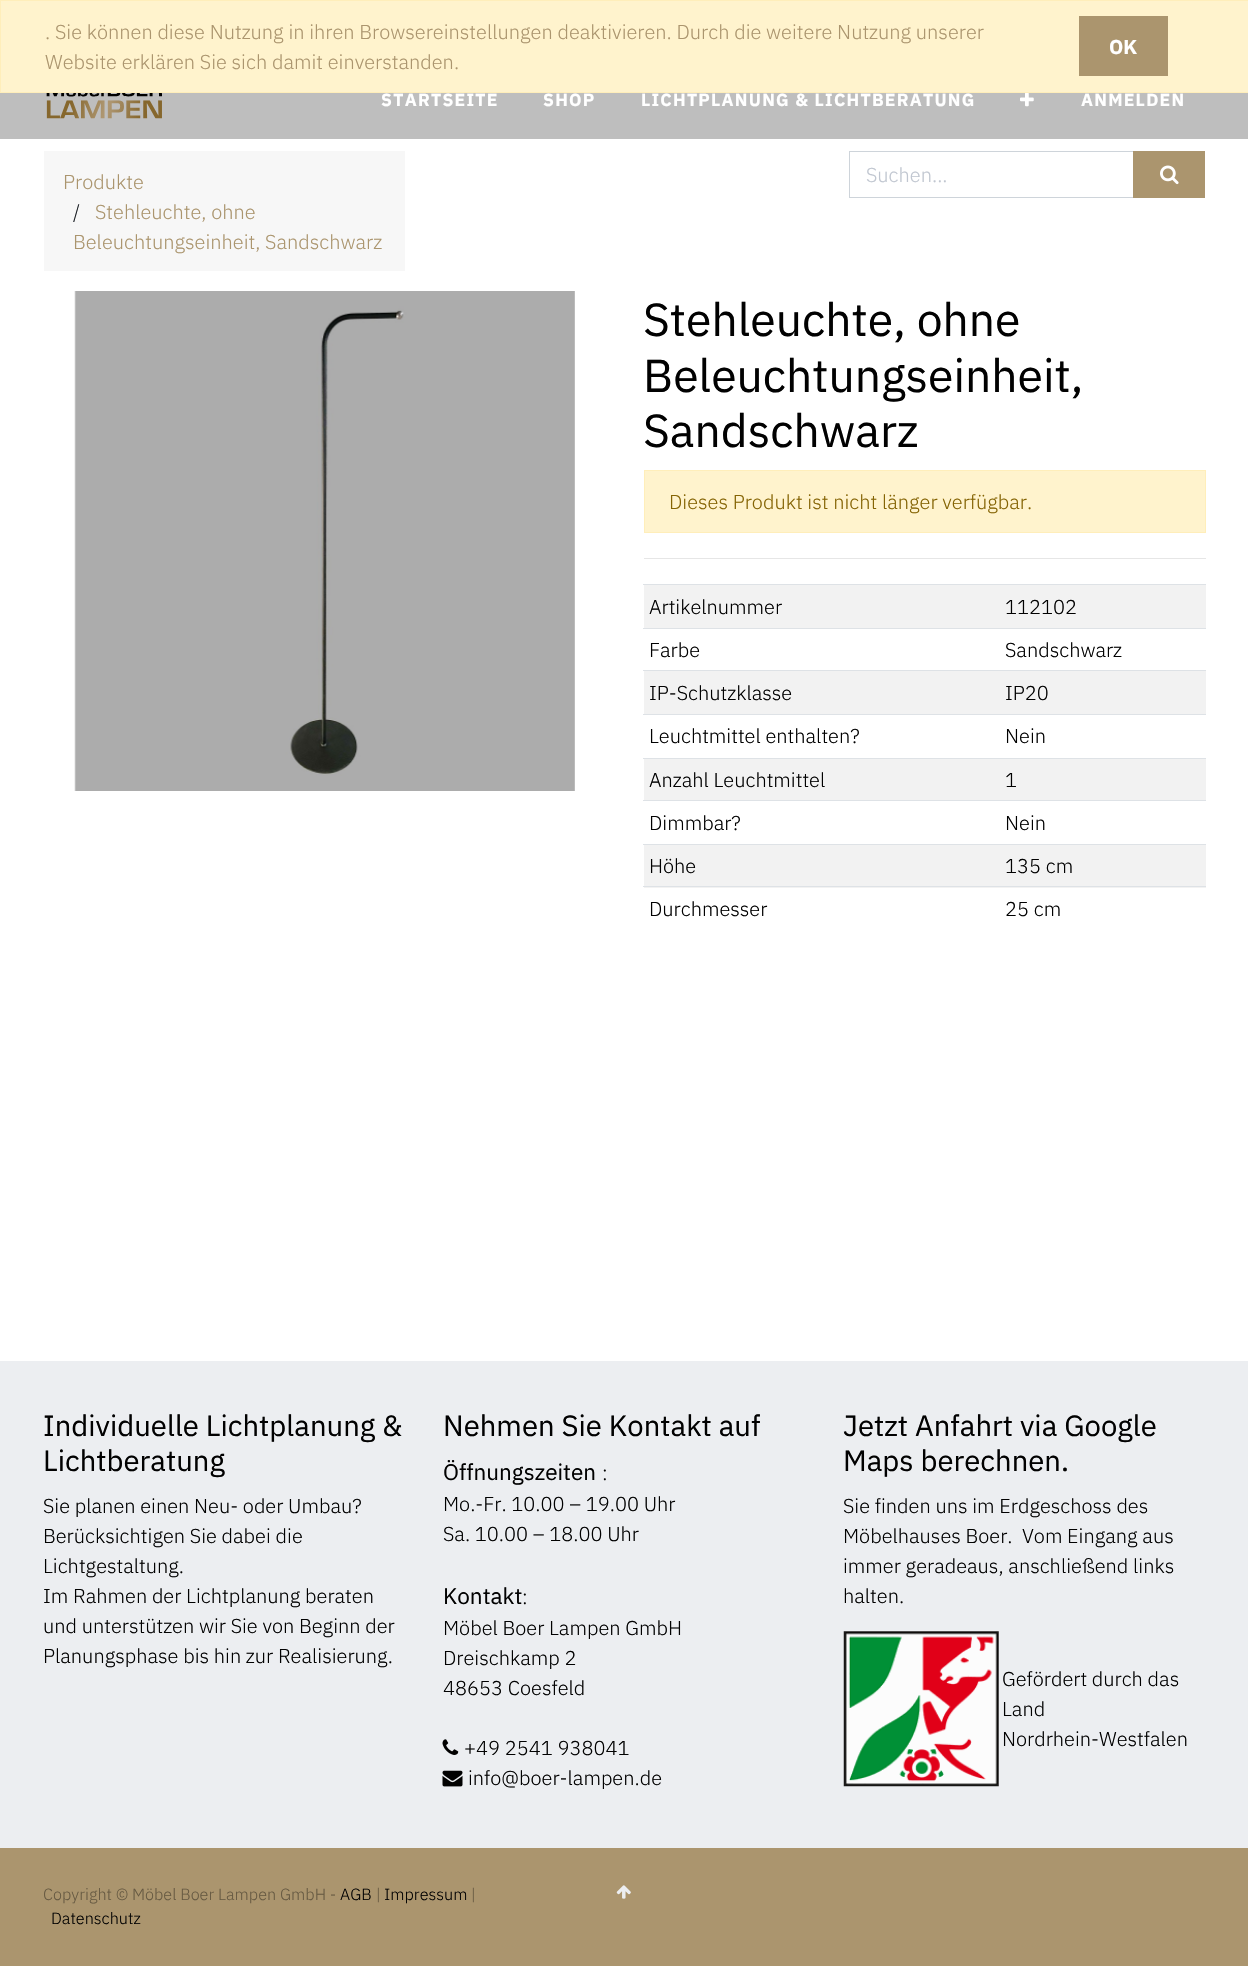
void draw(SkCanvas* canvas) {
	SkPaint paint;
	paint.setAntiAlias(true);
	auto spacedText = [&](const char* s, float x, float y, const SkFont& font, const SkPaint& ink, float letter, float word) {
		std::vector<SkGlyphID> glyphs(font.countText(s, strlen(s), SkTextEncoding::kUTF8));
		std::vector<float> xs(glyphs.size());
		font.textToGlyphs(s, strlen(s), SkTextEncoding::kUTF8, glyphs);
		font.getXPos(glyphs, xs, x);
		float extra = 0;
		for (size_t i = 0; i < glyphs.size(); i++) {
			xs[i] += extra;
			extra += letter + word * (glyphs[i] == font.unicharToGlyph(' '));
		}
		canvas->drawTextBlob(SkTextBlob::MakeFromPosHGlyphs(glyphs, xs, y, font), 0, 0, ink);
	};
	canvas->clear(0xffffffff);
	paint.setColor(0xfffff3cd);
	canvas->drawRect(SkRect::MakeXYWH(0.5, 0.5, 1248, 92), paint);
	paint.setStroke(true);
	paint.setStrokeWidth(1);
	paint.setColor(0xffffeeba);
	canvas->drawRect(SkRect::MakeXYWH(0.5, 0.5, 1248, 92), paint);
	SkFont f1(fontMgr->matchFamilyStyle("IBM Plex Sans", SkFontStyle(300, SkFontStyle::kNormal_Width, SkFontStyle::kUpright_Slant)), 20);
	f1.setSubpixel(true);
	paint.setStroke(false);
	paint.setColor(0xffab956e);
	canvas->drawString(". Sie können diese Nutzung in ihren Browsereinstellungen deaktivieren. Durch die weitere Nutzung unserer", 45, 39, f1, paint);
	canvas->drawString("Website erklären Sie sich damit einverstanden.", 45, 69, f1, paint);
	canvas->drawRect(SkRect::MakeXYWH(1079, 16, 89, 60), paint);
	SkFont f2(fontMgr->matchFamilyStyle("IBM Plex Sans", SkFontStyle::Bold()), 20);
	f2.setSubpixel(true);
	paint.setColor(0xffffffff);
	canvas->drawString("OK", 1109, 54, f2, paint);
	paint.setColor(0xffbebebe);
	canvas->drawRect(SkRect::MakeXYWH(0, 93, 1248, 46), paint);
	canvas->drawImageRect(SkImages::DeferredFromEncodedData(SkData::MakeFromFileName("img1.png")), SkRect::MakeXYWH(46, 93, 116, 26), SkSamplingOptions());
	SkFont f3(fontMgr->matchFamilyStyle("IBM Plex Sans", SkFontStyle::Bold()), 17.5);
	f3.setSubpixel(true);
	paint.setColor(0xffffffff);
	spacedText("STARTSEITE", 381, 106, f3, paint, 1.25, 0);
	spacedText("SHOP", 543, 106, f3, paint, 1.25, 0);
	spacedText("LICHTPLANUNG & LICHTBERATUNG", 641, 106, f3, paint, 1.25, 0);
	canvas->drawImageRect(SkImages::DeferredFromEncodedData(SkData::MakeFromFileName("img2.png")), SkRect::MakeXYWH(1020, 93, 14, 14), SkSamplingOptions());
	spacedText("ANMELDEN", 1081, 106, f3, paint, 1.25, 0);
	paint.setColor(0xfff7f7f7);
	canvas->drawRect(SkRect::MakeXYWH(44, 151, 361, 120), paint);
	paint.setColor(0xffab956e);
	canvas->drawString("Produkte", 63, 189, f1, paint);
	paint.setColor(0xff1d2127);
	canvas->drawString("/", 73, 219, f1, paint);
	paint.setColor(0xffab956e);
	canvas->drawString("Stehleuchte, ohne", 95, 219, f1, paint);
	canvas->drawString("Beleuchtungseinheit, Sandschwarz", 73, 249, f1, paint);
	paint.setStroke(true);
	paint.setColor(0xffced4da);
	canvas->drawRect(SkRect::MakeXYWH(849.5, 151.5, 284, 46), paint);
	paint.setStroke(false);
	paint.setColor(0xffc0c6d0);
	canvas->drawString("Suchen...", 866, 182, f1, paint);
	paint.setColor(0xffab956e);
	canvas->drawRect(SkRect::MakeXYWH(1133, 151, 72, 47), paint);
	canvas->drawImageRect(SkImages::DeferredFromEncodedData(SkData::MakeFromFileName("img3.png")), SkRect::MakeXYWH(1160, 165, 19, 20), SkSamplingOptions());
	canvas->drawImageRect(SkImages::DeferredFromEncodedData(SkData::MakeFromFileName("img4.png")), SkRect::MakeXYWH(74, 291, 501, 500), SkSamplingOptions());
	SkFont f4(fontMgr->matchFamilyStyle("IBM Plex Sans", SkFontStyle::Normal()), 46.25);
	f4.setSubpixel(true);
	paint.setColor(0xff010101);
	canvas->drawString("Stehleuchte, ohne", 643, 336, f4, paint);
	canvas->drawString("Beleuchtungseinheit,", 643, 392, f4, paint);
	canvas->drawString("Sandschwarz", 643, 447, f4, paint);
	paint.setColor(0xfffff3cd);
	canvas->drawRect(SkRect::MakeXYWH(644.5, 470.5, 561, 62), paint);
	paint.setStroke(true);
	paint.setColor(0xffffeeba);
	canvas->drawRect(SkRect::MakeXYWH(644.5, 470.5, 561, 62), paint);
	paint.setStroke(false);
	paint.setColor(0xff856404);
	canvas->drawString("Dieses Produkt ist nicht länger verfügbar.", 669, 509, f1, paint);
	paint.setColor(0xffe6e6e6);
	canvas->drawRect(SkRect::MakeXYWH(644, 558, 562, 1), paint);
	paint.setColor(0xfff2f2f2);
	canvas->drawRect(SkRect::MakeXYWH(644, 585, 562, 43), paint);
	paint.setColor(0xff010101);
	canvas->drawString("Artikelnummer", 649, 614, f1, paint);
	paint.setColor(0xffdee2e6);
	canvas->drawRect(SkRect::MakeXYWH(643, 584, 563, 1), paint);
	paint.setColor(0xff010101);
	canvas->drawString("112102", 1005, 614, f1, paint);
	canvas->drawString("Farbe", 649, 657, f1, paint);
	paint.setColor(0xffdee2e6);
	canvas->drawRect(SkRect::MakeXYWH(643, 628, 563, 1), paint);
	paint.setColor(0xff010101);
	canvas->drawString("Sandschwarz", 1005, 657, f1, paint);
	paint.setColor(0xfff2f2f2);
	canvas->drawRect(SkRect::MakeXYWH(644, 671, 562, 43), paint);
	paint.setColor(0xff010101);
	canvas->drawString("IP-Schutzklasse", 649, 700, f1, paint);
	paint.setColor(0xffdee2e6);
	canvas->drawRect(SkRect::MakeXYWH(643, 670, 563, 1), paint);
	paint.setColor(0xff010101);
	canvas->drawString("IP20", 1005, 700, f1, paint);
	canvas->drawString("Leuchtmittel enthalten?", 649, 743, f1, paint);
	paint.setColor(0xffdee2e6);
	canvas->drawRect(SkRect::MakeXYWH(643, 714, 563, 1), paint);
	paint.setColor(0xff010101);
	canvas->drawString("Nein", 1005, 743, f1, paint);
	paint.setColor(0xfff2f2f2);
	canvas->drawRect(SkRect::MakeXYWH(644, 759, 562, 41), paint);
	paint.setColor(0xff010101);
	canvas->drawString("Anzahl Leuchtmittel", 649, 787, f1, paint);
	paint.setColor(0xffdee2e6);
	canvas->drawRect(SkRect::MakeXYWH(643, 758, 563, 1), paint);
	paint.setColor(0xff010101);
	canvas->drawString("1", 1005, 787, f1, paint);
	canvas->drawString("Dimmbar?", 649, 830, f1, paint);
	paint.setColor(0xffdee2e6);
	canvas->drawRect(SkRect::MakeXYWH(643, 800, 563, 1), paint);
	paint.setColor(0xff010101);
	canvas->drawString("Nein", 1005, 830, f1, paint);
	paint.setColor(0xfff2f2f2);
	canvas->drawRect(SkRect::MakeXYWH(644, 845, 562, 43), paint);
	paint.setColor(0xff010101);
	canvas->drawString("Höhe", 649, 873, f1, paint);
	paint.setColor(0xffdee2e6);
	canvas->drawRect(SkRect::MakeXYWH(643, 844, 563, 1), paint);
	paint.setColor(0xff010101);
	canvas->drawString("135 cm", 1005, 873, f1, paint);
	canvas->drawString("Durchmesser", 649, 916, f1, paint);
	paint.setColor(0xffdee2e6);
	canvas->drawRect(SkRect::MakeXYWH(643, 886, 563, 1), paint);
	paint.setColor(0xff010101);
	canvas->drawString("25 cm", 1005, 916, f1, paint);
	paint.setColor(0xffeceef1);
	canvas->drawRect(SkRect::MakeXYWH(0, 1361, 1248, 487), paint);
	SkFont f5(fontMgr->matchFamilyStyle("IBM Plex Sans", SkFontStyle::Normal()), 29.25);
	f5.setSubpixel(true);
	paint.setColor(0xff010101);
	canvas->drawString("Individuelle Lichtplanung &", 43, 1436, f5, paint);
	canvas->drawString("Lichtberatung", 43, 1471, f5, paint);
	canvas->drawString("Sie planen einen Neu- oder Umbau?", 43, 1513, f1, paint);
	canvas->drawString("Berücksichtigen Sie dabei die", 43, 1543, f1, paint);
	canvas->drawString("Lichtgestaltung.", 43, 1573, f1, paint);
	canvas->drawString("Im Rahmen der Lichtplanung beraten", 43, 1603, f1, paint);
	canvas->drawString("und unterstützen wir Sie von Beginn der", 43, 1633, f1, paint);
	canvas->drawString("Planungsphase bis hin zur Realisierung.", 43, 1663, f1, paint);
	canvas->drawString("Nehmen Sie Kontakt auf", 443, 1436, f5, paint);
	SkFont f6(fontMgr->matchFamilyStyle("IBM Plex Sans", SkFontStyle::Normal()), 22.5);
	f6.setSubpixel(true);
	canvas->drawString("Öffnungszeiten", 443, 1480, f6, paint);
	canvas->drawString(":", 602, 1480, f1, paint);
	canvas->drawString("Mo.-Fr. 10.00 – 19.00 Uhr", 443, 1511, f1, paint);
	canvas->drawString("Sa. 10.00 – 18.00 Uhr", 443, 1541, f1, paint);
	canvas->drawString("Kontakt", 443, 1604, f6, paint);
	canvas->drawString(":", 522, 1604, f1, paint);
	canvas->drawString("Möbel Boer Lampen GmbH", 443, 1635, f1, paint);
	canvas->drawString("Dreischkamp 2", 443, 1665, f1, paint);
	canvas->drawString("48653 Coesfeld", 443, 1695, f1, paint);
	canvas->drawImageRect(SkImages::DeferredFromEncodedData(SkData::MakeFromFileName("img5.png")), SkRect::MakeXYWH(442, 1739, 17, 16), SkSamplingOptions());
	canvas->drawString("+49 2541 938041", 464, 1755, f1, paint);
	canvas->drawImageRect(SkImages::DeferredFromEncodedData(SkData::MakeFromFileName("img6.png")), SkRect::MakeXYWH(442, 1770, 21, 17), SkSamplingOptions());
	canvas->drawString("info@boer-lampen.de", 468, 1785, f1, paint);
	canvas->drawString("Jetzt Anfahrt via Google", 843, 1436, f5, paint);
	canvas->drawString("Maps berechnen.", 843, 1471, f5, paint);
	canvas->drawString("Sie finden uns im Erdgeschoss des", 843, 1513, f1, paint);
	canvas->drawString("Möbelhauses Boer.  Vom Eingang aus", 843, 1543, f1, paint);
	canvas->drawString("immer geradeaus, anschließend links", 843, 1573, f1, paint);
	canvas->drawString("halten.", 843, 1603, f1, paint);
	canvas->drawImageRect(SkImages::DeferredFromEncodedData(SkData::MakeFromFileName("img7.png")), SkRect::MakeXYWH(843, 1631, 156, 156), SkSamplingOptions());
	canvas->drawString("Gefördert durch das", 1002, 1686, f1, paint);
	canvas->drawString("Land", 1002, 1716, f1, paint);
	canvas->drawString("Nordrhein-Westfalen", 1002, 1746, f1, paint);
	paint.setColor(0xffab956e);
	canvas->drawRect(SkRect::MakeXYWH(0, 1848, 1248, 118), paint);
	SkFont f7(fontMgr->matchFamilyStyle("IBM Plex Sans", SkFontStyle(300, SkFontStyle::kNormal_Width, SkFontStyle::kUpright_Slant)), 16.25);
	f7.setSubpixel(true);
	paint.setColor(0xff675a42);
	canvas->drawString("Copyright © Möbel Boer Lampen GmbH -", 43, 1900, f7, paint);
	paint.setColor(0xff010101);
	canvas->drawString("AGB", 340, 1900, f7, paint);
	paint.setColor(0xff675a42);
	canvas->drawString("|", 376, 1900, f7, paint);
	paint.setColor(0xff010101);
	canvas->drawString("Impressum", 384, 1900, f7, paint);
	paint.setColor(0xff675a42);
	canvas->drawString("|", 471, 1900, f7, paint);
	paint.setColor(0xff010101);
	canvas->drawString("Datenschutz", 51, 1924, f7, paint);
	canvas->drawImageRect(SkImages::DeferredFromEncodedData(SkData::MakeFromFileName("img8.png")), SkRect::MakeXYWH(616, 1885, 15, 14), SkSamplingOptions());
}
